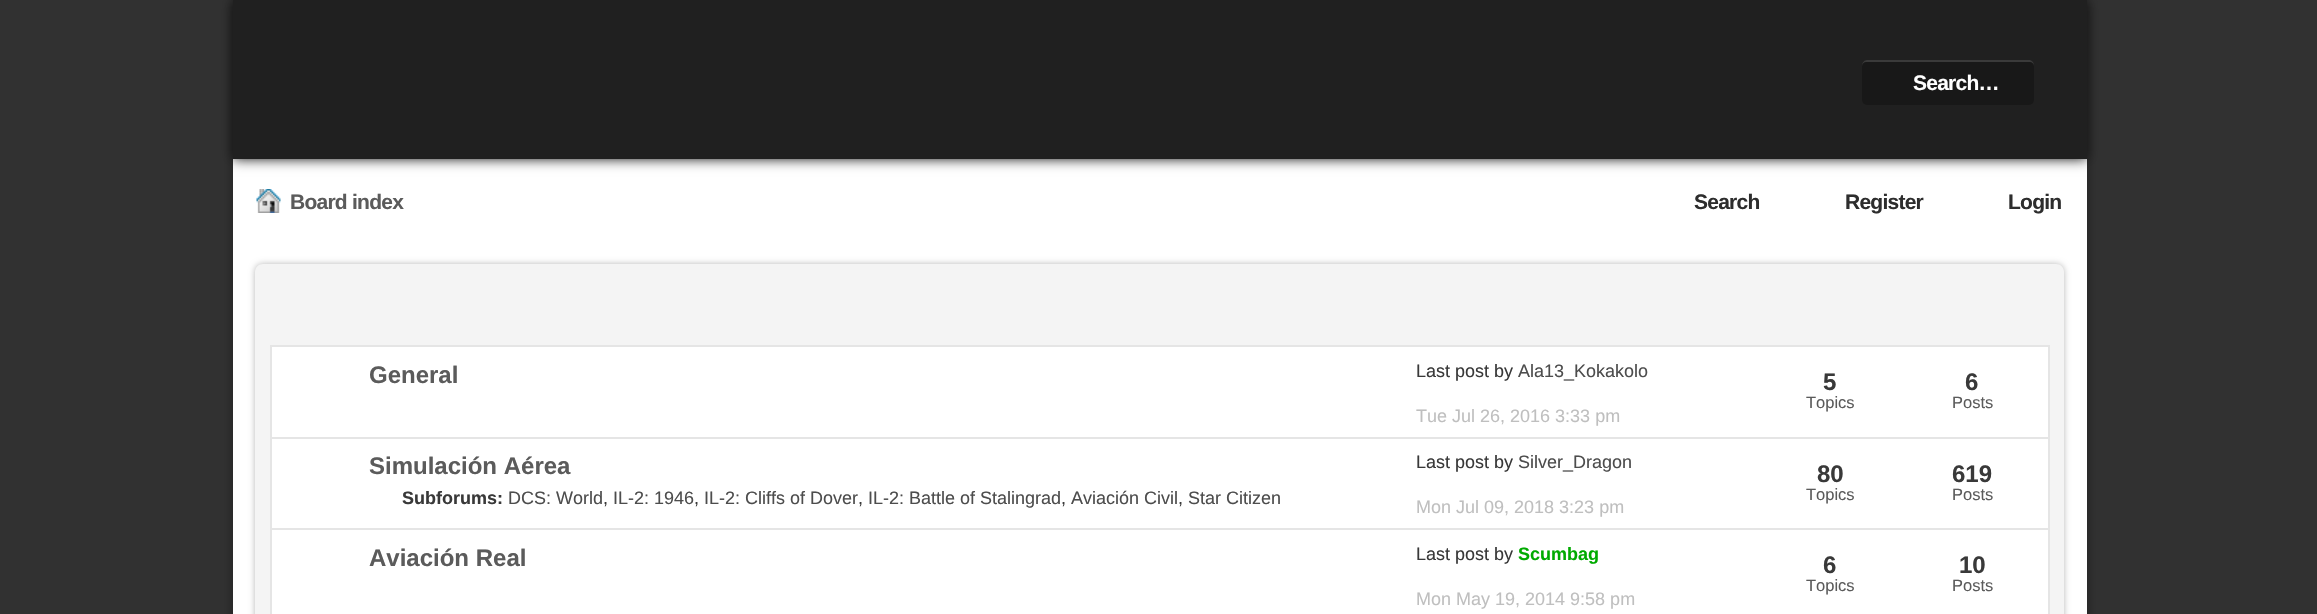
void draw(SkCanvas* canvas) {
	SkPaint paint;
	paint.setAntiAlias(true);
	auto spacedText = [&](const char* s, float x, float y, const SkFont& font, const SkPaint& ink, float letter, float word) {
		std::vector<SkGlyphID> glyphs(font.countText(s, strlen(s), SkTextEncoding::kUTF8));
		std::vector<float> xs(glyphs.size());
		font.textToGlyphs(s, strlen(s), SkTextEncoding::kUTF8, glyphs);
		font.getXPos(glyphs, xs, x);
		float extra = 0;
		for (size_t i = 0; i < glyphs.size(); i++) {
			xs[i] += extra;
			extra += letter + word * (glyphs[i] == font.unicharToGlyph(' '));
		}
		canvas->drawTextBlob(SkTextBlob::MakeFromPosHGlyphs(glyphs, xs, y, font), 0, 0, ink);
	};
	auto svgPath = [&](const char* data, bool evenOdd = false) {
		SkPath result = *SkParsePath::FromSVGString(data);
		if (evenOdd) result.setFillType(SkPathFillType::kEvenOdd);
		return result;
	};
	canvas->clear(0xff313131);
	paint.setColor(0xff1f1f1f);
	paint.setMaskFilter(SkMaskFilter::MakeBlur(kNormal_SkBlurStyle, 6));
	canvas->drawRoundRect(SkRect::MakeXYWH(233, 0, 1854, 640), 8, 8, paint);
	paint.setMaskFilter(nullptr);
	paint.setColor(0xffffffff);
	canvas->drawRect(SkRect::MakeXYWH(233, 159, 1854, 455), paint);
	paint.setColor(0xff121212);
	paint.setMaskFilter(SkMaskFilter::MakeBlur(kNormal_SkBlurStyle, 6));
	canvas->drawRect(SkRect::MakeXYWH(233, 0, 1854, 159), paint);
	paint.setMaskFilter(nullptr);
	paint.setColor(0xff202020);
	canvas->drawRect(SkRect::MakeXYWH(233, 0, 1854, 159), paint);
	paint.setColor(0xff181818);
	canvas->drawRoundRect(SkRect::MakeXYWH(1862, 60, 172, 45), 5, 5, paint);
	paint.setColor(0xff3a3a3a);
	canvas->drawPath(svgPath("M1866 62H2030C2032 62 2034 64 2034 66C2034 63 2033 61 2030 60H1867C1864 60 1862 63 1862 66C1862 64 1864 62 1866 62Z"), paint);
	SkFont f1(fontMgr->matchFamilyStyle("Liberation Sans", SkFontStyle::Bold()), 21);
	f1.setSubpixel(true);
	paint.setColor(0xffffffff);
	spacedText("Search…", 1913, 90, f1, paint, -0.75, 0);
	canvas->drawImageRect(SkImages::DeferredFromEncodedData(SkData::MakeFromFileName("img1.png")), SkRect::MakeXYWH(256, 189, 25, 24), SkSamplingOptions());
	paint.setColor(0xff5b5b5b);
	spacedText("Board index", 290, 209, f1, paint, -0.75, 0);
	paint.setColor(0xff2d2d2d);
	spacedText("Search", 1694, 209, f1, paint, -0.75, 0);
	spacedText("Register", 1845, 209, f1, paint, -0.75, 0);
	spacedText("Login", 2008, 209, f1, paint, -0.75, 0);
	paint.setColor(0xffb8b8b8);
	paint.setMaskFilter(SkMaskFilter::MakeBlur(kNormal_SkBlurStyle, 3));
	canvas->drawRoundRect(SkRect::MakeXYWH(255, 264, 1809, 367), 8, 8, paint);
	paint.setMaskFilter(nullptr);
	paint.setColor(0xfff4f4f4);
	canvas->drawPath(svgPath("M263 264H2056C2060.5 264 2064 267.5 2064 272V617C2064 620 2062 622 2059 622H260C257 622 255 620 255 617V272C255 267.5 258.5 264 263 264Z"), paint);
	paint.setColor(0xffffffff);
	canvas->drawRect(SkRect::MakeXYWH(272, 347, 1776, 267), paint);
	paint.setColor(0xffe5e5e5);
	canvas->drawRect(SkRect::MakeXYWH(270, 345, 1779, 2), paint);
	canvas->drawRect(SkRect::MakeXYWH(2048, 345, 2, 269), paint);
	canvas->drawRect(SkRect::MakeXYWH(270, 345, 2, 269), paint);
	SkFont f2(fontMgr->matchFamilyStyle("Liberation Sans", SkFontStyle::Bold()), 24);
	f2.setSubpixel(true);
	paint.setColor(0xff5b5b5b);
	canvas->drawString("General", 369, 383, f2, paint);
	SkFont f3(fontMgr->matchFamilyStyle("Liberation Sans", SkFontStyle::Normal()), 18);
	f3.setSubpixel(true);
	paint.setColor(0xff393939);
	canvas->drawString("Last post by", 1416, 377, f3, paint);
	paint.setColor(0xff4d4d4d);
	canvas->drawString("Ala13_Kokakolo", 1518, 377, f3, paint);
	paint.setColor(0xffbfbfbf);
	canvas->drawString("Tue Jul 26, 2016 3:33 pm", 1416, 422, f3, paint);
	paint.setColor(0xff393939);
	canvas->drawString("5", 1823, 390, f2, paint);
	SkFont f4(fontMgr->matchFamilyStyle("Liberation Sans", SkFontStyle::Normal()), 16.5);
	f4.setSubpixel(true);
	paint.setColor(0xff5b5b5b);
	canvas->drawString("Topics", 1806, 408, f4, paint);
	paint.setColor(0xff393939);
	canvas->drawString("6", 1965, 390, f2, paint);
	paint.setColor(0xff5b5b5b);
	canvas->drawString("Posts", 1952, 408, f4, paint);
	paint.setColor(0xffe5e5e5);
	canvas->drawRect(SkRect::MakeXYWH(272, 437, 1776, 2), paint);
	paint.setColor(0xff5b5b5b);
	canvas->drawString("Simulación Aérea", 369, 474, f2, paint);
	SkFont f5(fontMgr->matchFamilyStyle("Liberation Sans", SkFontStyle::Bold()), 18);
	f5.setSubpixel(true);
	paint.setColor(0xff393939);
	canvas->drawString("Subforums:", 402, 504, f5, paint);
	paint.setColor(0xff4d4d4d);
	canvas->drawString("DCS: World", 508, 504, f3, paint);
	paint.setColor(0xff393939);
	canvas->drawString(",", 603, 504, f3, paint);
	paint.setColor(0xff4d4d4d);
	canvas->drawString("IL-2: 1946", 613, 504, f3, paint);
	paint.setColor(0xff393939);
	canvas->drawString(",", 694, 504, f3, paint);
	paint.setColor(0xff4d4d4d);
	canvas->drawString("IL-2: Cliffs of Dover", 704, 504, f3, paint);
	paint.setColor(0xff393939);
	canvas->drawString(",", 858, 504, f3, paint);
	paint.setColor(0xff4d4d4d);
	canvas->drawString("IL-2: Battle of Stalingrad", 868, 504, f3, paint);
	paint.setColor(0xff393939);
	canvas->drawString(",", 1061, 504, f3, paint);
	paint.setColor(0xff4d4d4d);
	canvas->drawString("Aviación Civil", 1071, 504, f3, paint);
	paint.setColor(0xff393939);
	canvas->drawString(",", 1178, 504, f3, paint);
	paint.setColor(0xff4d4d4d);
	canvas->drawString("Star Citizen", 1188, 504, f3, paint);
	paint.setColor(0xff393939);
	canvas->drawString("Last post by", 1416, 468, f3, paint);
	paint.setColor(0xff4d4d4d);
	canvas->drawString("Silver_Dragon", 1518, 468, f3, paint);
	paint.setColor(0xffbfbfbf);
	canvas->drawString("Mon Jul 09, 2018 3:23 pm", 1416, 513, f3, paint);
	paint.setColor(0xff393939);
	canvas->drawString("80", 1817, 482, f2, paint);
	paint.setColor(0xff5b5b5b);
	canvas->drawString("Topics", 1806, 500, f4, paint);
	paint.setColor(0xff393939);
	canvas->drawString("619", 1952, 482, f2, paint);
	paint.setColor(0xff5b5b5b);
	canvas->drawString("Posts", 1952, 500, f4, paint);
	paint.setColor(0xffe5e5e5);
	canvas->drawRect(SkRect::MakeXYWH(272, 528, 1776, 2), paint);
	paint.setColor(0xff5b5b5b);
	canvas->drawString("Aviación Real", 369, 566, f2, paint);
	paint.setColor(0xff393939);
	canvas->drawString("Last post by", 1416, 560, f3, paint);
	paint.setColor(0xff00aa00);
	canvas->drawString("Scumbag", 1518, 560, f5, paint);
	paint.setColor(0xffbfbfbf);
	canvas->drawString("Mon May 19, 2014 9:58 pm", 1416, 605, f3, paint);
	paint.setColor(0xff393939);
	canvas->drawString("6", 1823, 573, f2, paint);
	paint.setColor(0xff5b5b5b);
	canvas->drawString("Topics", 1806, 591, f4, paint);
	paint.setColor(0xff393939);
	canvas->drawString("10", 1959, 573, f2, paint);
	paint.setColor(0xff5b5b5b);
	canvas->drawString("Posts", 1952, 591, f4, paint);
}
